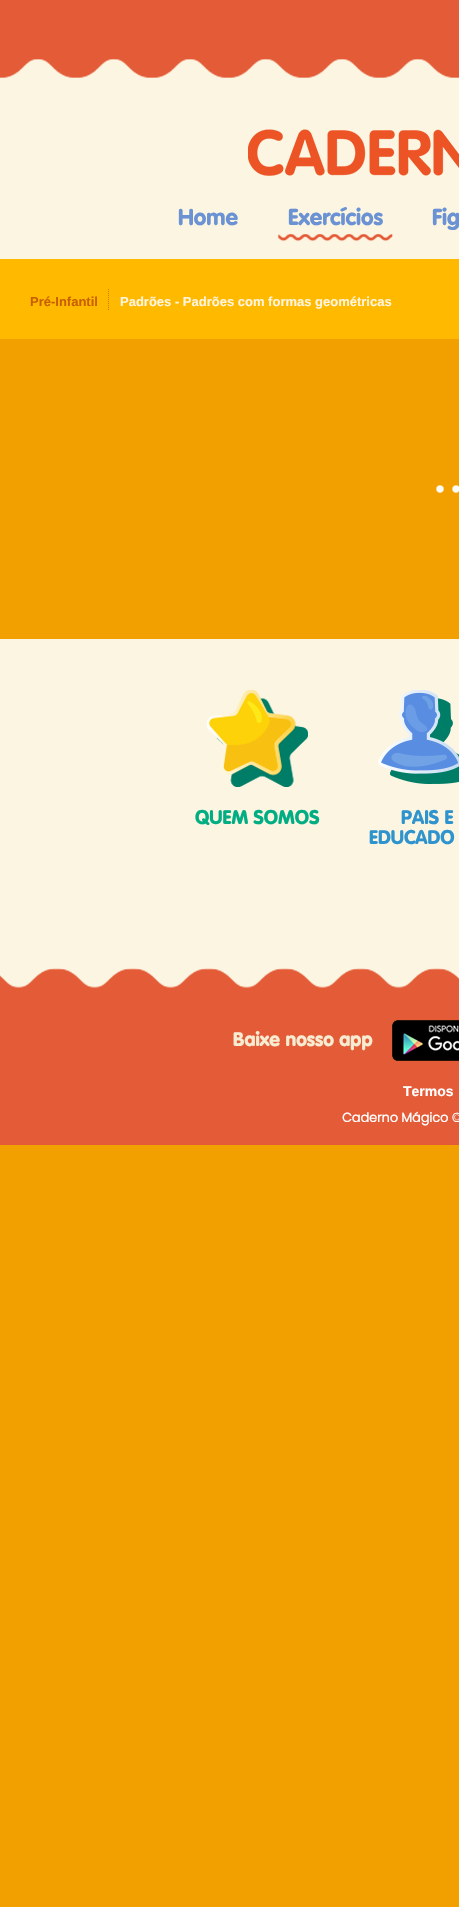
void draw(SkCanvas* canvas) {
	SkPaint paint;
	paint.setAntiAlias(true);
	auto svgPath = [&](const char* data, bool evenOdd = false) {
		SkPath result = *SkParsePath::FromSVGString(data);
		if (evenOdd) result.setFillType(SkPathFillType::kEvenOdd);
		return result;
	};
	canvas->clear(0xfff2a000);
	paint.setColor(0xfffcf5e2);
	canvas->drawRect(SkRect::MakeXYWH(0, 78, 459, 890), paint);
	canvas->drawImageRect(SkImages::DeferredFromEncodedData(SkData::MakeFromFileName("img1.png")), SkRect::MakeXYWH(0, 0, 459, 78), SkSamplingOptions());
	canvas->drawImageRect(SkImages::DeferredFromEncodedData(SkData::MakeFromFileName("img2.png")), SkRect::MakeXYWH(248, 129, 211, 47), SkSamplingOptions());
	SkFont f1(fontMgr->matchFamilyStyle("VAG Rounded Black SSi", SkFontStyle(900, SkFontStyle::kNormal_Width, SkFontStyle::kUpright_Slant)), 22.5);
	f1.setSubpixel(true);
	paint.setColor(0xff6b92d3);
	canvas->drawString("Home", 178, 225, f1, paint);
	canvas->drawString("Exercícios", 288, 225, f1, paint);
	canvas->drawImageRect(SkImages::DeferredFromEncodedData(SkData::MakeFromFileName("img3.png")), SkRect::MakeXYWH(278, 234, 115, 7), SkSamplingOptions());
	canvas->drawString("Fig", 432, 225, f1, paint);
	paint.setColor(0xffffba00);
	canvas->drawRect(SkRect::MakeXYWH(0, 259, 459, 80), paint);
	SkFont f2(fontMgr->matchFamilyStyle("Arimo", SkFontStyle::Bold()), 13);
	f2.setSubpixel(true);
	paint.setColor(0xffc85e00);
	canvas->drawString("Pré-Infantil", 30, 306, f2, paint);
	paint.setStroke(true);
	paint.setStrokeWidth(1);
	paint.setColor(0xffcb7a03);
	paint.setPathEffect(SkDashPathEffect::Make({{1, 1}}, 0));
	canvas->drawPath(svgPath("M108.5 289V311"), paint);
	paint.setPathEffect(nullptr);
	paint.setStroke(false);
	paint.setColor(0xfffff4df);
	canvas->drawString("Padrões - Padrões com formas geométricas", 120, 306, f2, paint);
	paint.setColor(0xfff2a000);
	canvas->drawRect(SkRect::MakeXYWH(0, 339, 459, 300), paint);
	canvas->drawImageRect(SkImages::DeferredFromEncodedData(SkData::MakeFromFileName("img4.png")), SkRect::MakeXYWH(436, 485, 23, 8), SkSamplingOptions());
	canvas->drawImageRect(SkImages::DeferredFromEncodedData(SkData::MakeFromFileName("img5.png")), SkRect::MakeXYWH(0, 968, 459, 30), SkSamplingOptions());
	canvas->drawImageRect(SkImages::DeferredFromEncodedData(SkData::MakeFromFileName("img6.png")), SkRect::MakeXYWH(206, 689, 102, 98), SkSamplingOptions());
	SkFont f3(fontMgr->matchFamilyStyle("VAG Rounded Black SSi", SkFontStyle(900, SkFontStyle::kNormal_Width, SkFontStyle::kUpright_Slant)), 19.25);
	f3.setSubpixel(true);
	paint.setColor(0xff01ae83);
	canvas->drawString("QUEM SOMOS", 195, 824, f3, paint);
	canvas->drawImageRect(SkImages::DeferredFromEncodedData(SkData::MakeFromFileName("img7.png")), SkRect::MakeXYWH(378, 690, 81, 94), SkSamplingOptions());
	paint.setColor(0xff2f94cd);
	canvas->drawString("PAIS E", 401, 824, f3, paint);
	canvas->drawString("EDUCADO", 369, 844, f3, paint);
	paint.setColor(0xffe35b37);
	canvas->drawRect(SkRect::MakeXYWH(0, 998, 459, 147), paint);
	paint.setColor(0xfff7ecd1);
	canvas->drawString("Baixe nosso app", 233, 1046, f3, paint);
	canvas->drawImageRect(SkImages::DeferredFromEncodedData(SkData::MakeFromFileName("img8.png")), SkRect::MakeXYWH(392, 1020, 67, 41), SkSamplingOptions());
	SkFont f4(fontMgr->matchFamilyStyle("Arimo", SkFontStyle::Bold()), 14);
	f4.setSubpixel(true);
	paint.setColor(0xffffffff);
	canvas->drawString("Termos", 403, 1096, f4, paint);
	SkFont f5(fontMgr->matchFamilyStyle("Poppins", SkFontStyle::Bold()), 12.75);
	f5.setSubpixel(true);
	canvas->drawString("Caderno Mágico ©", 342, 1122, f5, paint);
}
